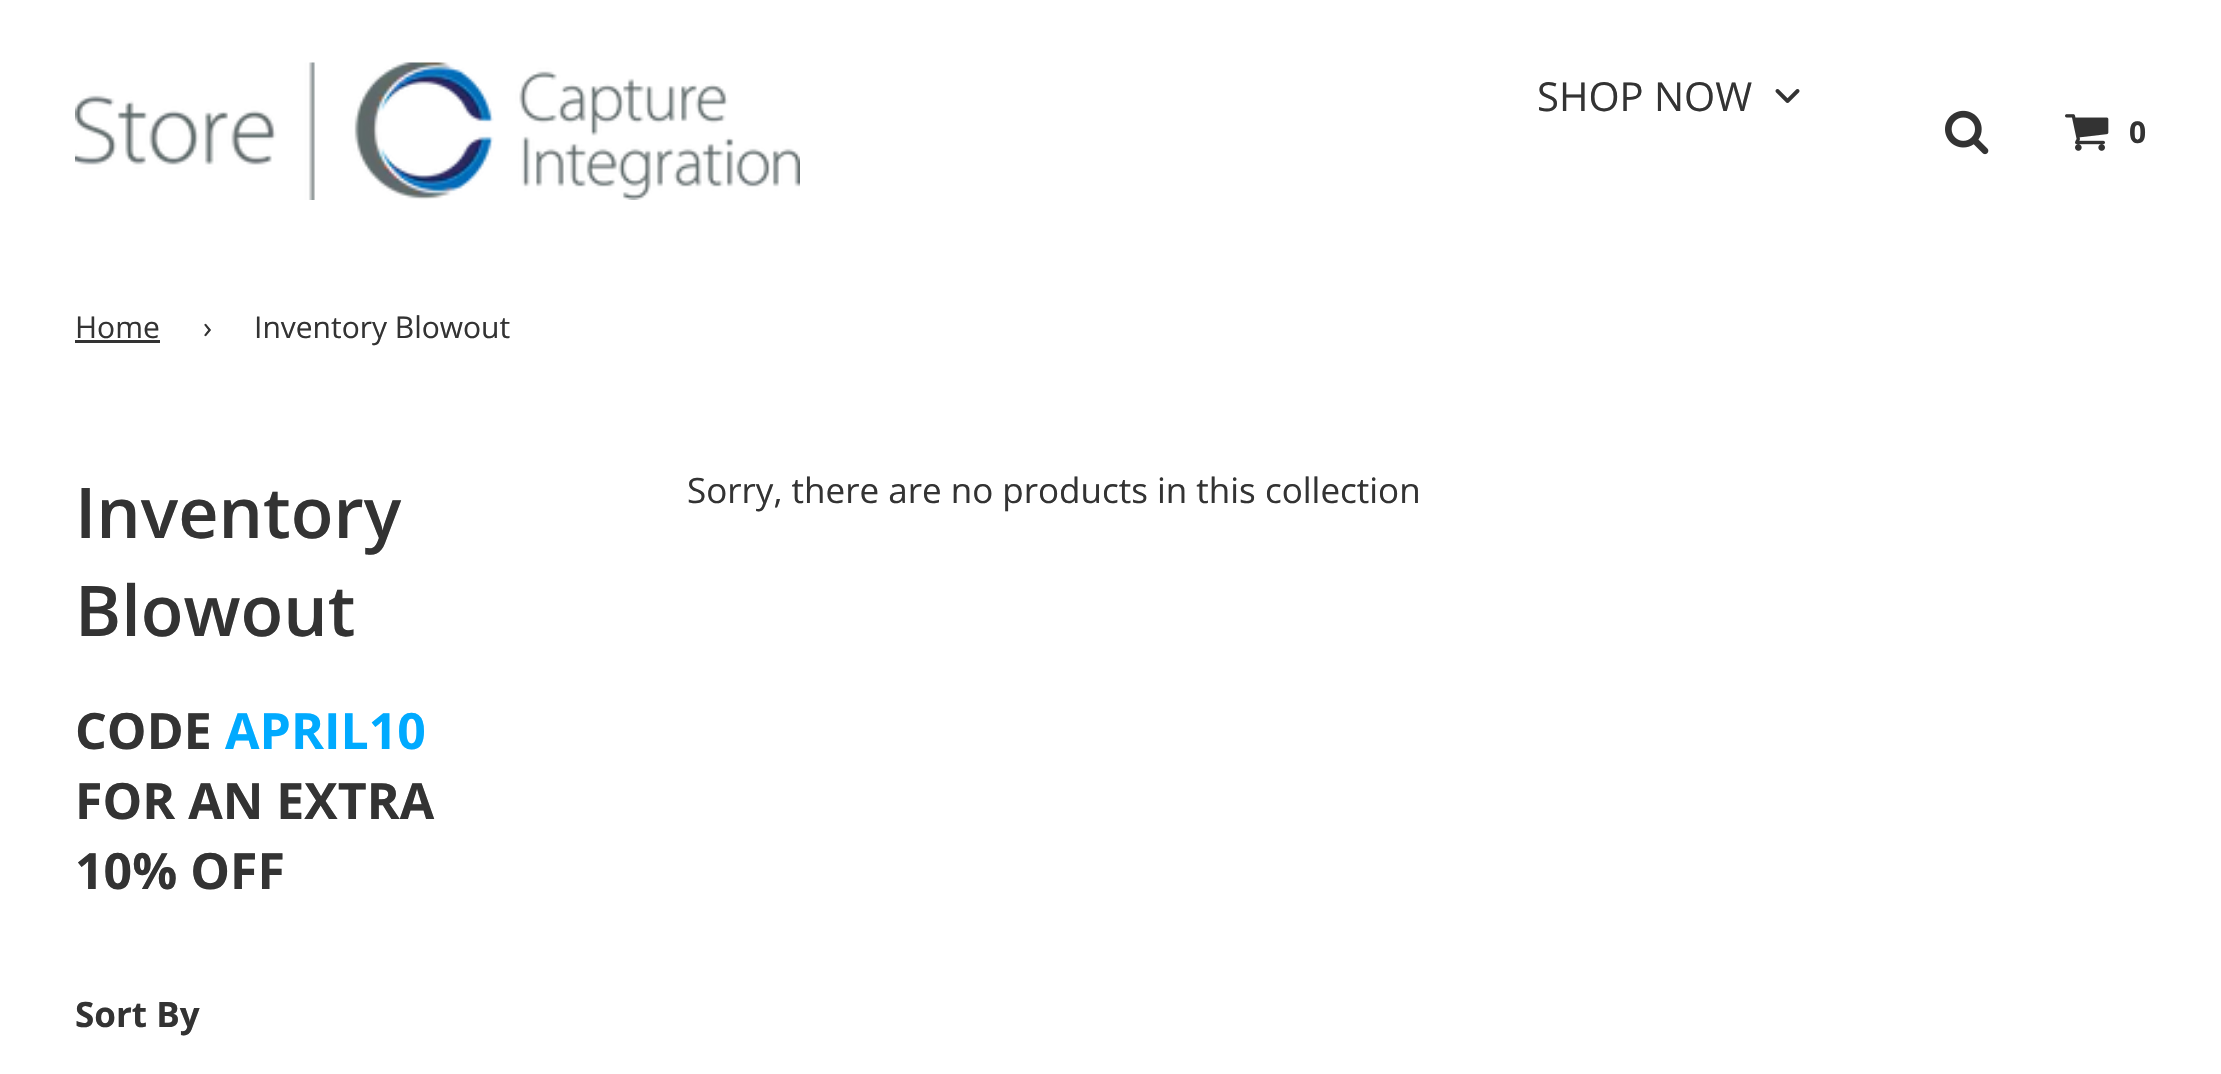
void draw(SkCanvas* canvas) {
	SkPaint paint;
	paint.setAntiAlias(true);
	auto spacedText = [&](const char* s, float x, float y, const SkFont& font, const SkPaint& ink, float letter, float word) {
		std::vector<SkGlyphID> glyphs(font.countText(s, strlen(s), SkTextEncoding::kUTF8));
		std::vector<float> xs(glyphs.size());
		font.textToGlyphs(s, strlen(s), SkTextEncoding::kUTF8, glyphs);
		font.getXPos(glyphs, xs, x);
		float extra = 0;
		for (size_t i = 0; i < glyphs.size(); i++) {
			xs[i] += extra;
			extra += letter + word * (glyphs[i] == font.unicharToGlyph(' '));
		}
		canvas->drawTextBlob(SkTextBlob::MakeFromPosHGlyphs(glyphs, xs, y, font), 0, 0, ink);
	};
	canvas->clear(0xffffffff);
	canvas->drawImageRect(SkImages::DeferredFromEncodedData(SkData::MakeFromFileName("img1.png")), SkRect::MakeXYWH(75, 62, 725, 138), SkSamplingOptions());
	SkFont f1(fontMgr->matchFamilyStyle("Open Sans", SkFontStyle::Normal()), 40);
	f1.setSubpixel(true);
	paint.setColor(0xff333333);
	canvas->drawString("SHOP NOW", 1537, 111, f1, paint);
	canvas->drawImageRect(SkImages::DeferredFromEncodedData(SkData::MakeFromFileName("img2.png")), SkRect::MakeXYWH(1775, 89, 25, 14), SkSamplingOptions());
	canvas->drawImageRect(SkImages::DeferredFromEncodedData(SkData::MakeFromFileName("img3.png")), SkRect::MakeXYWH(1945, 110, 44, 45), SkSamplingOptions());
	canvas->drawImageRect(SkImages::DeferredFromEncodedData(SkData::MakeFromFileName("img4.png")), SkRect::MakeXYWH(2065, 114, 44, 37), SkSamplingOptions());
	SkFont f2(fontMgr->matchFamilyStyle("Open Sans", SkFontStyle::Bold()), 30);
	f2.setSubpixel(true);
	spacedText("0", 2129, 143, f2, paint, 1, 0);
	SkFont f3(fontMgr->matchFamilyStyle("Open Sans", SkFontStyle::Normal()), 30);
	f3.setSubpixel(true);
	canvas->drawString("Home", 75, 338, f3, paint);
	canvas->drawRect(SkRect::MakeXYWH(75, 340, 85, 3), paint);
	canvas->drawString("›", 203, 338, f3, paint);
	canvas->drawString("Inventory Blowout", 254, 338, f3, paint);
	SkFont f4(fontMgr->matchFamilyStyle("Open Sans", SkFontStyle(600, SkFontStyle::kNormal_Width, SkFontStyle::kUpright_Slant)), 70);
	f4.setSubpixel(true);
	canvas->drawString("Inventory", 75, 538, f4, paint);
	canvas->drawString("Blowout", 75, 636, f4, paint);
	SkFont f5(fontMgr->matchFamilyStyle("Open Sans", SkFontStyle::Bold()), 50);
	f5.setSubpixel(true);
	canvas->drawString("CODE", 75, 749, f5, paint);
	paint.setColor(0xff00aaff);
	canvas->drawString("APRIL10", 225, 749, f5, paint);
	paint.setColor(0xff333333);
	canvas->drawString("FOR AN EXTRA", 75, 819, f5, paint);
	canvas->drawString("10% OFF", 75, 889, f5, paint);
	SkFont f6(fontMgr->matchFamilyStyle("Open Sans", SkFontStyle::Bold()), 35);
	f6.setSubpixel(true);
	canvas->drawString("Sort By", 75, 1027, f6, paint);
	SkFont f7(fontMgr->matchFamilyStyle("Open Sans", SkFontStyle::Normal()), 35);
	f7.setSubpixel(true);
	canvas->drawString("Sorry, there are no products in this collection", 687, 503, f7, paint);
}
